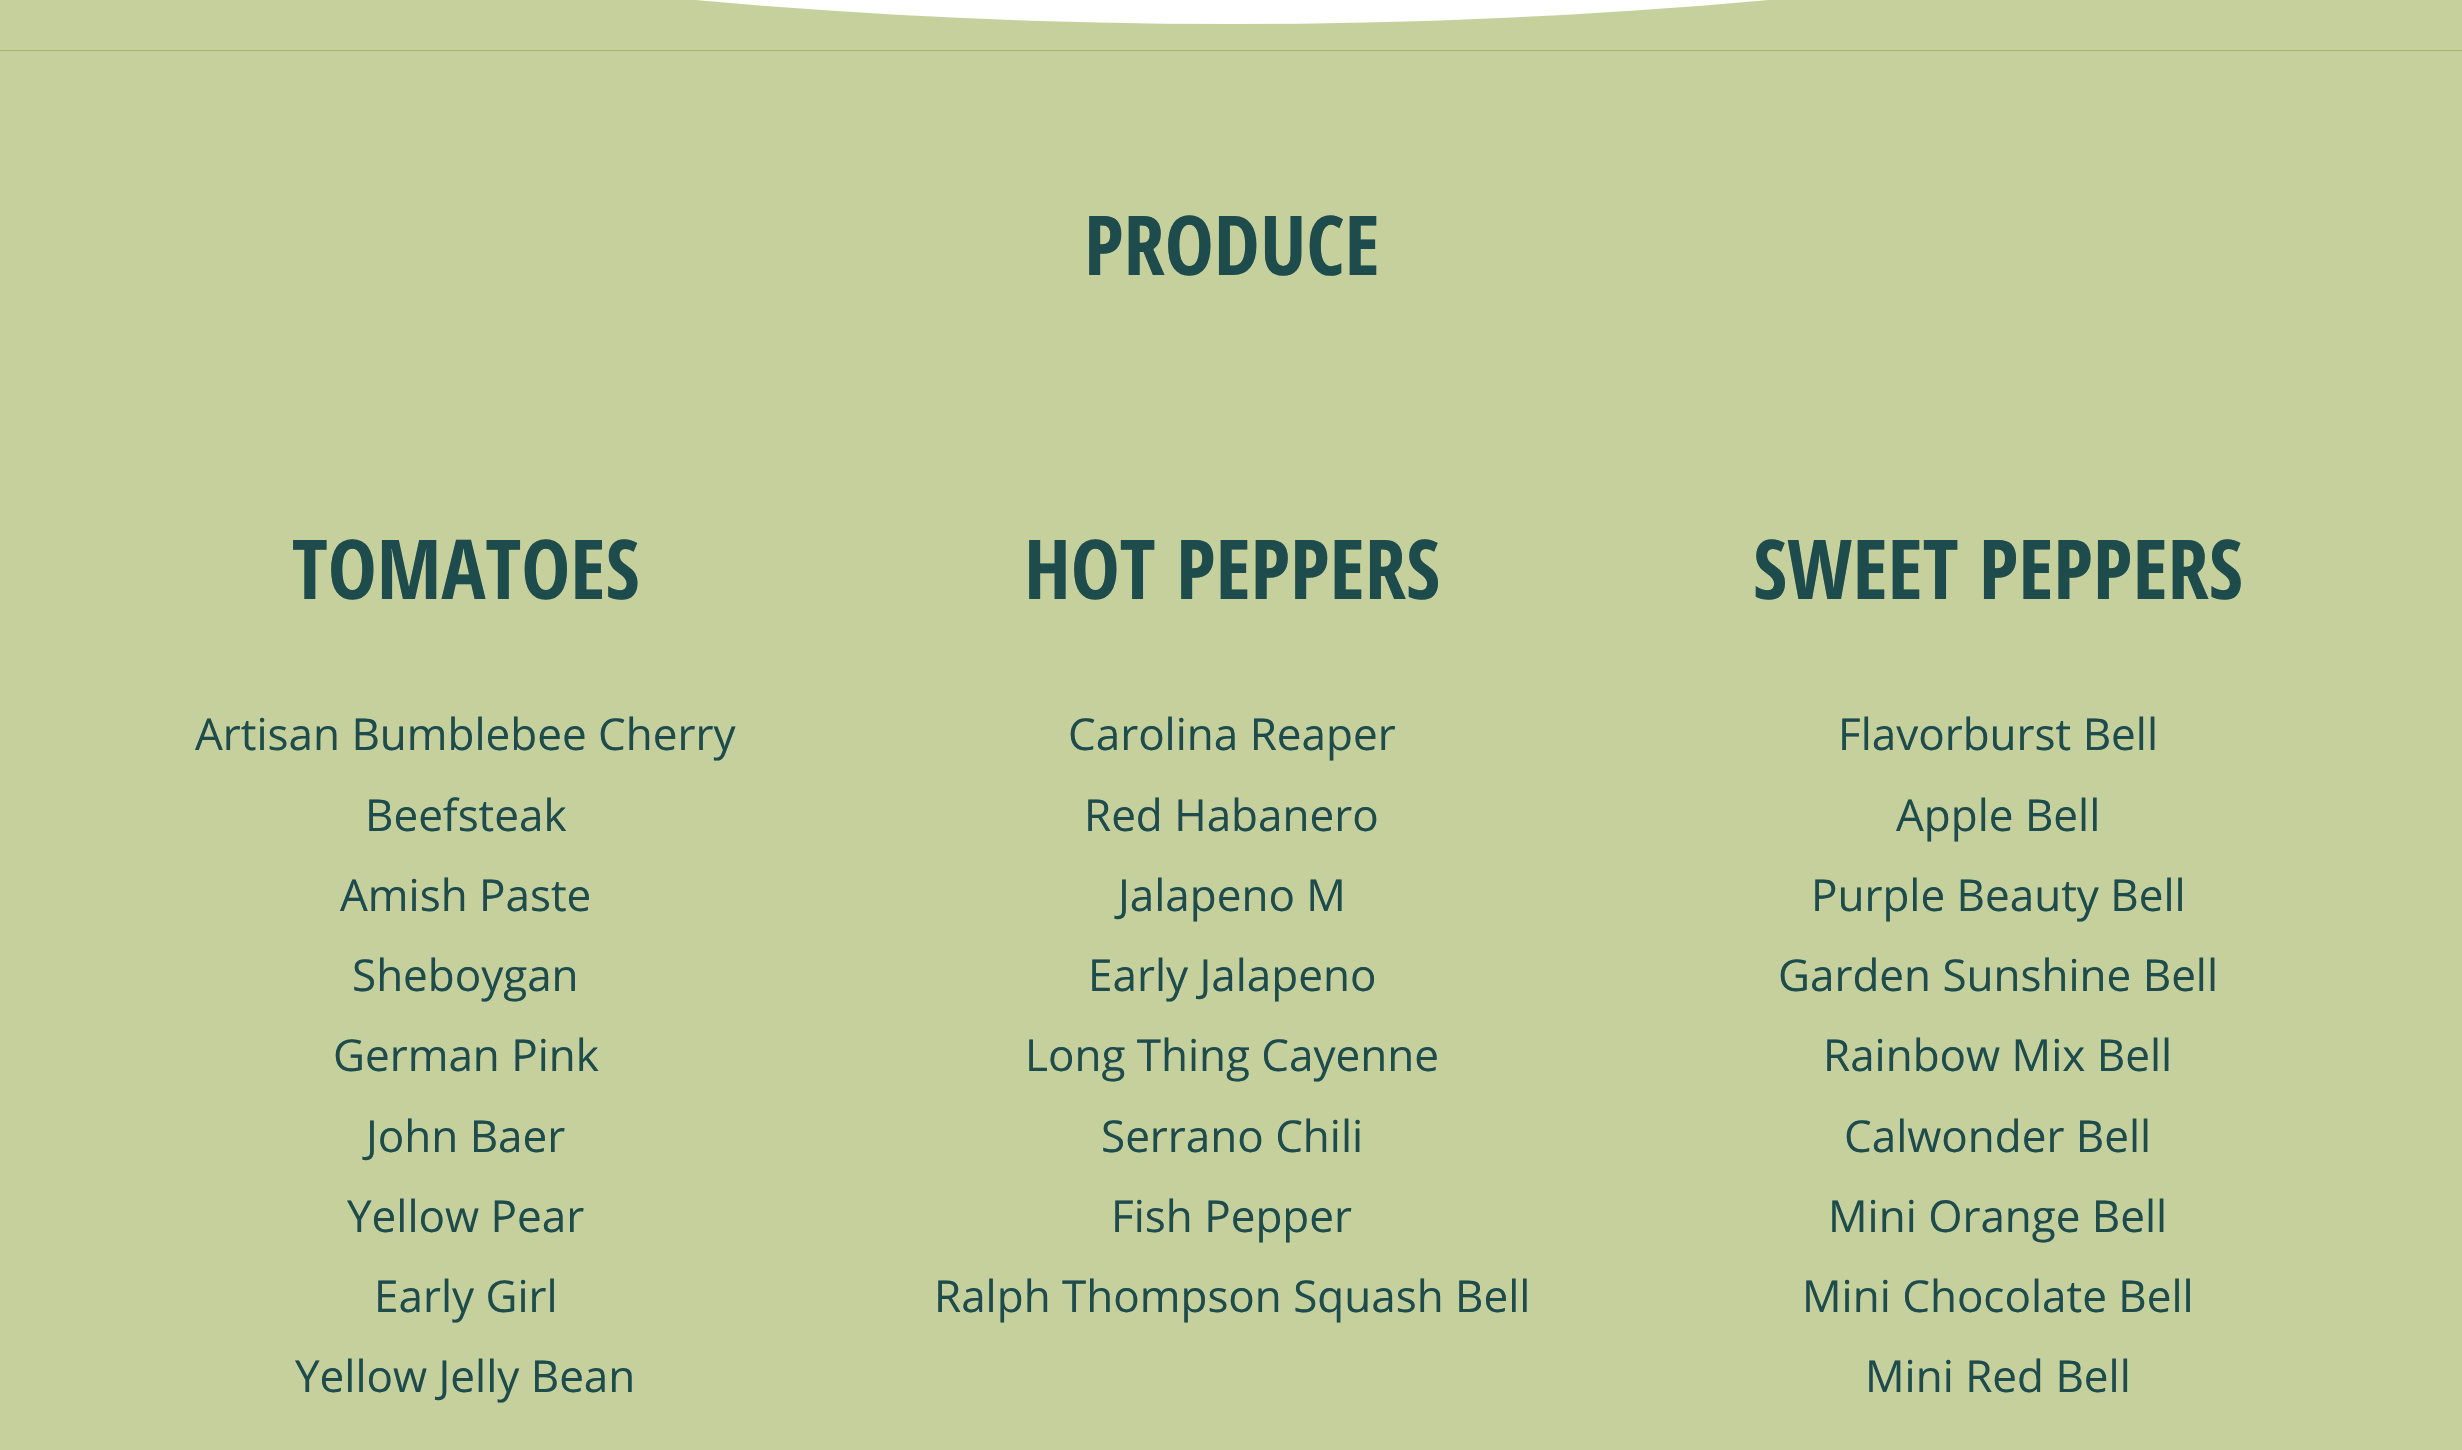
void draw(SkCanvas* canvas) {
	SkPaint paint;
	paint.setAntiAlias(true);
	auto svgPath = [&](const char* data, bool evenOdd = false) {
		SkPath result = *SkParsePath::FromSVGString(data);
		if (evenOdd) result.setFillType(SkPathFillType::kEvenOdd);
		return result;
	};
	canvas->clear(0xffffffff);
	paint.setColor(0xffc5d09d);
	canvas->drawRect(SkRect::MakeXYWH(0, 50, 2462, 1400), paint);
	paint.setColor(0x808ba13b);
	canvas->drawPath(svgPath("M0 51H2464V-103C2053-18 1643 24 1232 24C821 24 411-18 0-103Z"), paint);
	SkFont f1(fontMgr->matchFamilyStyle("Open Sans Condensed", SkFontStyle::Bold()), 82.5);
	f1.setSubpixel(true);
	paint.setColor(0xff1e4c4c);
	canvas->drawString("PRODUCE", 1084, 275, f1, paint);
	canvas->drawString("TOMATOES", 292, 599, f1, paint);
	SkFont f2(fontMgr->matchFamilyStyle("Open Sans", SkFontStyle::Normal()), 44);
	f2.setSubpixel(true);
	canvas->drawString("Artisan Bumblebee Cherry", 195, 750, f2, paint);
	canvas->drawString("Beefsteak", 365, 831, f2, paint);
	canvas->drawString("Amish Paste", 340, 911, f2, paint);
	canvas->drawString("Sheboygan", 352, 991, f2, paint);
	canvas->drawString("German Pink", 333, 1071, f2, paint);
	canvas->drawString("John Baer", 366, 1152, f2, paint);
	canvas->drawString("Yellow Pear", 347, 1232, f2, paint);
	canvas->drawString("Early Girl", 374, 1312, f2, paint);
	canvas->drawString("Yellow Jelly Bean", 295, 1392, f2, paint);
	canvas->drawString("HOT PEPPERS", 1024, 599, f1, paint);
	canvas->drawString("Carolina Reaper", 1068, 750, f2, paint);
	canvas->drawString("Red Habanero", 1084, 831, f2, paint);
	canvas->drawString("Jalapeno M", 1118, 911, f2, paint);
	canvas->drawString("Early Jalapeno", 1088, 991, f2, paint);
	canvas->drawString("Long Thing Cayenne", 1025, 1071, f2, paint);
	canvas->drawString("Serrano Chili", 1101, 1152, f2, paint);
	canvas->drawString("Fish Pepper", 1111, 1232, f2, paint);
	canvas->drawString("Ralph Thompson Squash Bell", 934, 1312, f2, paint);
	canvas->drawString("SWEET PEPPERS", 1753, 599, f1, paint);
	canvas->drawString("Flavorburst Bell", 1838, 750, f2, paint);
	canvas->drawString("Apple Bell", 1896, 831, f2, paint);
	canvas->drawString("Purple Beauty Bell", 1811, 911, f2, paint);
	canvas->drawString("Garden Sunshine Bell", 1778, 991, f2, paint);
	canvas->drawString("Rainbow Mix Bell", 1823, 1071, f2, paint);
	canvas->drawString("Calwonder Bell", 1844, 1152, f2, paint);
	canvas->drawString("Mini Orange Bell", 1828, 1232, f2, paint);
	canvas->drawString("Mini Chocolate Bell", 1802, 1312, f2, paint);
	canvas->drawString("Mini Red Bell", 1865, 1392, f2, paint);
}
